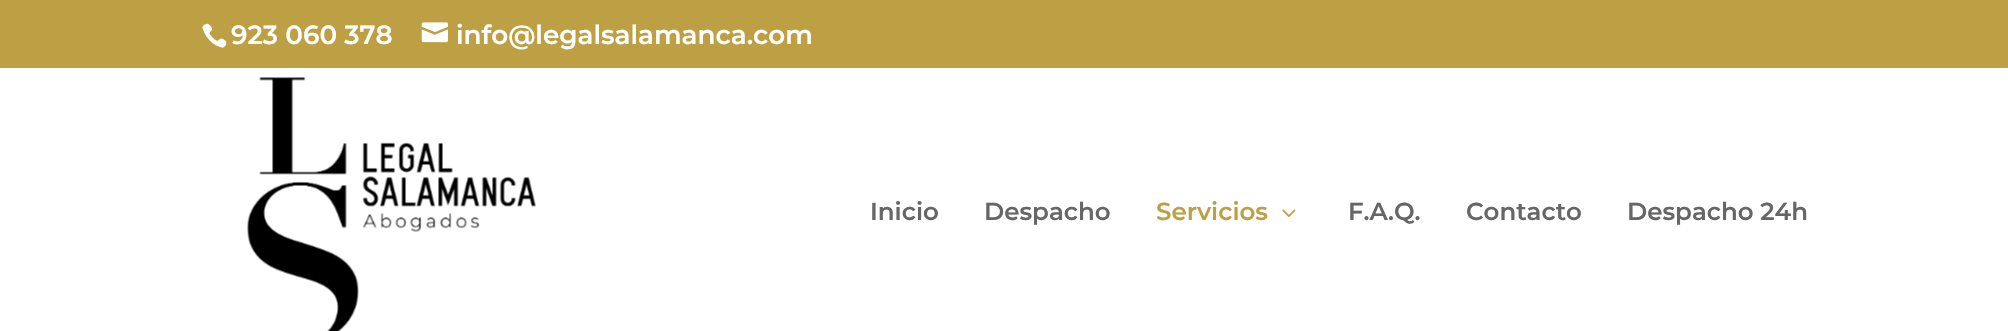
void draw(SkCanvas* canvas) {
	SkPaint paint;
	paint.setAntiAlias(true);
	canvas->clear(0xffffffff);
	paint.setColor(0xffbda044);
	canvas->drawRect(SkRect::MakeXYWH(0, 0, 2008, 68), paint);
	canvas->drawImageRect(SkImages::DeferredFromEncodedData(SkData::MakeFromFileName("img1.png")), SkRect::MakeXYWH(202, 23, 25, 25), SkSamplingOptions());
	SkFont f1(fontMgr->matchFamilyStyle("Montserrat", SkFontStyle(100, SkFontStyle::kNormal_Width, SkFontStyle::kUpright_Slant)), 26.25);
	f1.setSubpixel(true);
	paint.setColor(0xffffffff);
	canvas->drawString("923 060 378", 231, 44, f1, paint);
	canvas->drawImageRect(SkImages::DeferredFromEncodedData(SkData::MakeFromFileName("img2.png")), SkRect::MakeXYWH(421, 22, 27, 21), SkSamplingOptions());
	canvas->drawString("info@legalsalamanca.com", 456, 44, f1, paint);
	canvas->drawImageRect(SkImages::DeferredFromEncodedData(SkData::MakeFromFileName("img3.png")), SkRect::MakeXYWH(247, 77, 289, 254), SkSamplingOptions());
	SkFont f2(fontMgr->matchFamilyStyle("Montserrat", SkFontStyle(100, SkFontStyle::kNormal_Width, SkFontStyle::kUpright_Slant)), 24.5);
	f2.setSubpixel(true);
	paint.setColor(0xff666666);
	canvas->drawString("Inicio", 870, 220, f2, paint);
	canvas->drawString("Despacho", 984, 220, f2, paint);
	paint.setColor(0xffbda044);
	canvas->drawString("Servicios", 1156, 220, f2, paint);
	canvas->drawImageRect(SkImages::DeferredFromEncodedData(SkData::MakeFromFileName("img4.png")), SkRect::MakeXYWH(1282, 209, 14, 8), SkSamplingOptions());
	paint.setColor(0xff666666);
	canvas->drawString("F.A.Q.", 1348, 220, f2, paint);
	canvas->drawString("Contacto", 1466, 220, f2, paint);
	canvas->drawString("Despacho 24h", 1627, 220, f2, paint);
}
